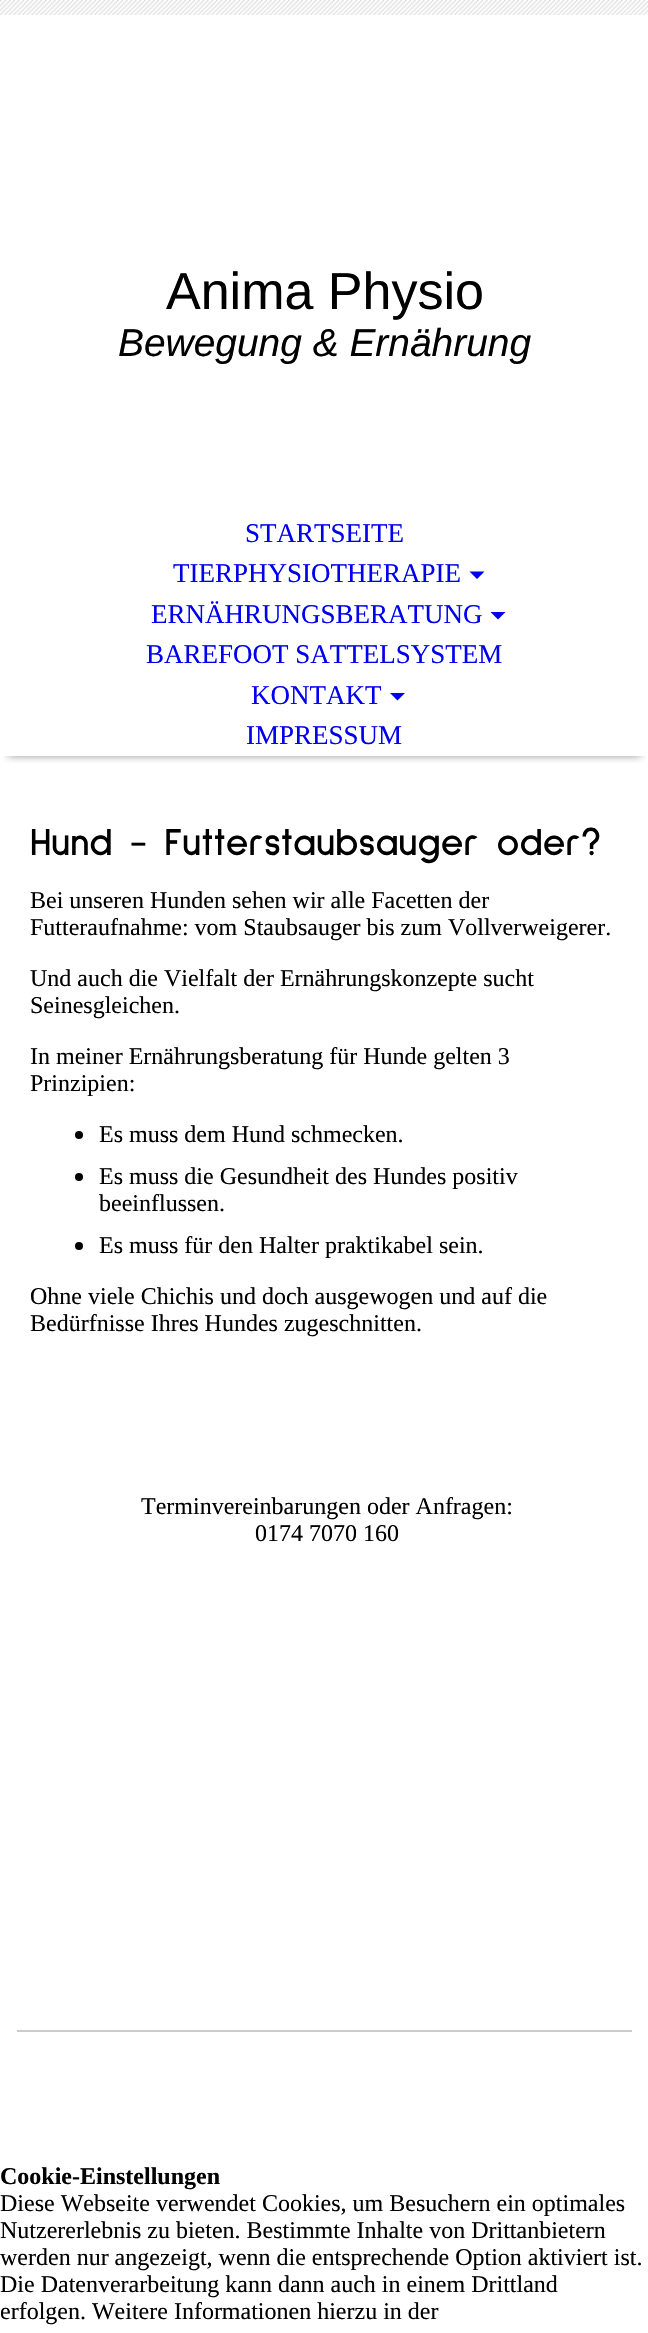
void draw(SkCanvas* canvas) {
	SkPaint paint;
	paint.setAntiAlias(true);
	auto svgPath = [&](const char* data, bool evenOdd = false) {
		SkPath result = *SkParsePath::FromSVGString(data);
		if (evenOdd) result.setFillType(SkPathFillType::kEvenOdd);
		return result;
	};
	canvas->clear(0xffffffff);
	canvas->drawImageRect(SkImages::DeferredFromEncodedData(SkData::MakeFromFileName("img1.png")), SkRect::MakeXYWH(0, 0, 648, 15), SkSamplingOptions());
	SkFont f1(fontMgr->matchFamilyStyle("Liberation Sans", SkFontStyle::Normal()), 52);
	f1.setSubpixel(true);
	paint.setColor(0xff000000);
	canvas->drawString("Anima Physio", 166, 309, f1, paint);
	SkFont f2(fontMgr->matchFamilyStyle("Liberation Sans", SkFontStyle::Italic()), 38.9);
	f2.setSubpixel(true);
	canvas->drawString("Bewegung & Ernährung", 118, 356, f2, paint);
	canvas->save();
	canvas->clipRect(SkRect::MakeXYWH(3, 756, 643, 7));
	paint.setColor(0x66000000);
	paint.setMaskFilter(SkMaskFilter::MakeBlur(kNormal_SkBlurStyle, 4));
	canvas->drawRect(SkRect::MakeXYWH(8, 498, 633, 258), paint);
	paint.setMaskFilter(nullptr);
	canvas->restore();
	SkFont f3(fontMgr->matchFamilyStyle("Liberation Serif", SkFontStyle::Normal()), 27);
	f3.setSubpixel(true);
	paint.setColor(0xff0000ee);
	canvas->drawString("STARTSEITE", 245, 542, f3, paint);
	canvas->drawString("TIERPHYSIOTHERAPIE", 173, 582, f3, paint);
	canvas->drawPath(svgPath("M469.5 571.5H484.5L477 579ZM490.5 612H505.5L498 619.5Z"), paint);
	canvas->drawString("ERNÄHRUNGSBERATUNG", 151, 623, f3, paint);
	canvas->drawString("BAREFOOT SATTELSYSTEM", 146, 663, f3, paint);
	canvas->drawString("KONTAKT", 251, 704, f3, paint);
	canvas->drawPath(svgPath("M390 693H405L397.5 700.5Z"), paint);
	canvas->drawString("IMPRESSUM", 246, 744, f3, paint);
	SkFont f4(fontMgr->matchFamilyStyle("Sulphur Point", SkFontStyle::Bold()), 39);
	f4.setSubpixel(true);
	paint.setColor(0xff000000);
	canvas->drawString("Hund - Futterstaubsauger oder?", 30, 855, f4, paint);
	SkFont f5(fontMgr->matchFamilyStyle("Liberation Serif", SkFontStyle::Normal()), 24);
	f5.setSubpixel(true);
	canvas->drawString("Bei unseren Hunden sehen wir alle Facetten der", 30, 908, f5, paint);
	canvas->drawString("Futteraufnahme: vom Staubsauger bis zum Vollverweigerer.", 30, 935, f5, paint);
	canvas->drawString("Und auch die Vielfalt der Ernährungskonzepte sucht", 30, 986, f5, paint);
	canvas->drawString("Seinesgleichen.", 30, 1013, f5, paint);
	canvas->drawString("In meiner Ernährungsberatung für Hunde gelten 3", 30, 1064, f5, paint);
	canvas->drawString("Prinzipien:", 30, 1091, f5, paint);
	canvas->drawCircle(79, 1135, 4, paint);
	canvas->drawString("Es muss dem Hund schmecken.", 99, 1142, f5, paint);
	canvas->drawCircle(79, 1177, 4, paint);
	canvas->drawString("Es muss die Gesundheit des Hundes positiv", 99, 1184, f5, paint);
	canvas->drawString("beeinflussen.", 99, 1211, f5, paint);
	canvas->drawCircle(79, 1246, 4, paint);
	canvas->drawString("Es muss für den Halter praktikabel sein.", 99, 1253, f5, paint);
	canvas->drawString("Ohne viele Chichis und doch ausgewogen und auf die", 30, 1304, f5, paint);
	canvas->drawString("Bedürfnisse Ihres Hundes zugeschnitten.", 30, 1331, f5, paint);
	canvas->drawString("Terminvereinbarungen oder Anfragen:", 141, 1514, f5, paint);
	canvas->drawString("0174 7070 160", 255, 1541, f5, paint);
	paint.setColor(0xffcccccc);
	canvas->drawRect(SkRect::MakeXYWH(17, 2030, 615, 2), paint);
	SkFont f6(fontMgr->matchFamilyStyle("Liberation Serif", SkFontStyle::Bold()), 24);
	f6.setSubpixel(true);
	paint.setColor(0xff000000);
	canvas->drawString("Cookie-Einstellungen", 0, 2184, f6, paint);
	canvas->drawString("Diese Webseite verwendet Cookies, um Besuchern ein optimales", 0, 2211, f5, paint);
	canvas->drawString("Nutzererlebnis zu bieten. Bestimmte Inhalte von Drittanbietern", 0, 2238, f5, paint);
	canvas->drawString("werden nur angezeigt, wenn die entsprechende Option aktiviert ist.", 0, 2265, f5, paint);
	canvas->drawString("Die Datenverarbeitung kann dann auch in einem Drittland", 0, 2292, f5, paint);
	canvas->drawString("erfolgen. Weitere Informationen hierzu in der", 0, 2319, f5, paint);
}
